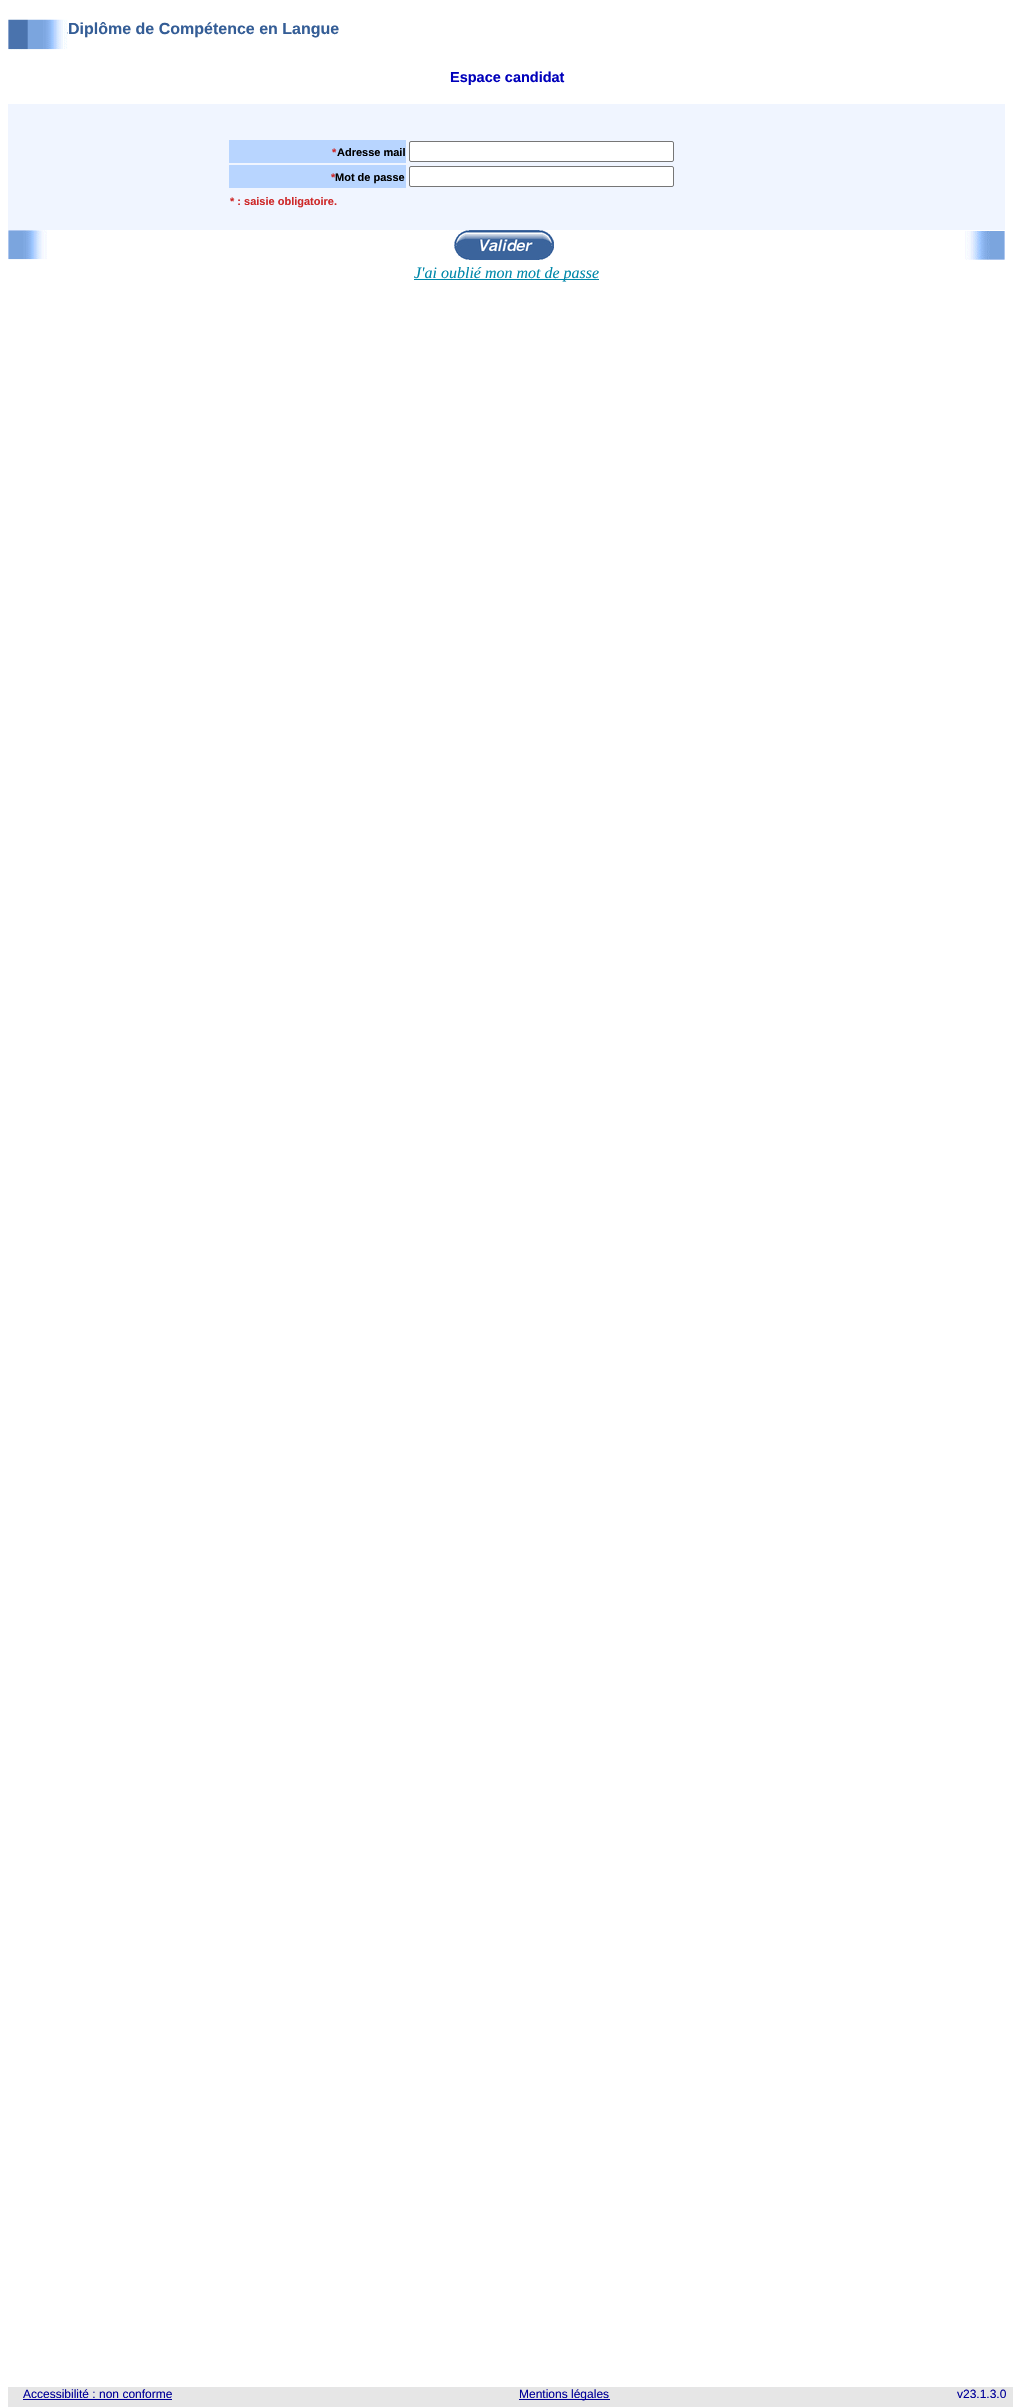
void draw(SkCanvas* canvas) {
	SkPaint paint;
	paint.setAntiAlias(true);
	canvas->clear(0xffffffff);
	canvas->drawImageRect(SkImages::DeferredFromEncodedData(SkData::MakeFromFileName("img1.png")), SkRect::MakeXYWH(8, 19, 60, 31), SkSamplingOptions());
	SkFont f1(fontMgr->matchFamilyStyle("Liberation Sans", SkFontStyle::Bold()), 16);
	f1.setSubpixel(true);
	paint.setColor(0xff345d96);
	canvas->drawString("Diplôme de Compétence en Langue", 68, 34, f1, paint);
	SkFont f2(fontMgr->matchFamilyStyle("Liberation Sans", SkFontStyle::Bold()), 14.5);
	f2.setSubpixel(true);
	paint.setColor(0xff0000bb);
	canvas->drawString("Espace candidat", 450, 82, f2, paint);
	paint.setColor(0xfff0f5ff);
	canvas->drawRect(SkRect::MakeXYWH(8, 104, 997, 126), paint);
	paint.setColor(0xffb8d5ff);
	canvas->drawRect(SkRect::MakeXYWH(229, 140, 177, 23), paint);
	SkFont f3(fontMgr->matchFamilyStyle("Liberation Sans", SkFontStyle::Bold()), 11);
	f3.setSubpixel(true);
	paint.setColor(0xffce2929);
	canvas->drawString("*", 332, 156, f3, paint);
	paint.setColor(0xff000000);
	canvas->drawString("Adresse mail", 337, 156, f3, paint);
	paint.setColor(0xffffffff);
	canvas->drawRoundRect(SkRect::MakeXYWH(409.5, 141.5, 264, 20), 1.5, 1.5, paint);
	paint.setStroke(true);
	paint.setStrokeWidth(1);
	paint.setColor(0xff767676);
	canvas->drawRoundRect(SkRect::MakeXYWH(409.5, 141.5, 264, 20), 1.5, 1.5, paint);
	paint.setStroke(false);
	paint.setColor(0xffb8d5ff);
	canvas->drawRect(SkRect::MakeXYWH(229, 165, 177, 23), paint);
	paint.setColor(0xffce2929);
	canvas->drawString("*", 331, 181, f3, paint);
	paint.setColor(0xff000000);
	canvas->drawString("Mot de passe", 335, 181, f3, paint);
	paint.setColor(0xffffffff);
	canvas->drawRoundRect(SkRect::MakeXYWH(409.5, 166.5, 264, 20), 1.5, 1.5, paint);
	paint.setStroke(true);
	paint.setColor(0xff767676);
	canvas->drawRoundRect(SkRect::MakeXYWH(409.5, 166.5, 264, 20), 1.5, 1.5, paint);
	paint.setStroke(false);
	paint.setColor(0xffce2929);
	canvas->drawString("* : saisie obligatoire.", 230, 205, f3, paint);
	canvas->drawImageRect(SkImages::DeferredFromEncodedData(SkData::MakeFromFileName("img2.png")), SkRect::MakeXYWH(8, 230, 39, 30), SkSamplingOptions());
	canvas->drawImageRect(SkImages::DeferredFromEncodedData(SkData::MakeFromFileName("img3.png")), SkRect::MakeXYWH(454, 230, 100, 30), SkSamplingOptions());
	canvas->drawImageRect(SkImages::DeferredFromEncodedData(SkData::MakeFromFileName("img4.png")), SkRect::MakeXYWH(965, 231, 40, 29), SkSamplingOptions());
	paint.setColor(0xff0088aa);
	canvas->drawRect(SkRect::MakeXYWH(414, 279, 185, 1), paint);
	SkFont f4(fontMgr->matchFamilyStyle("Liberation Serif", SkFontStyle::Italic()), 16);
	f4.setSubpixel(true);
	canvas->drawString("J'ai oublié mon mot de passe", 414, 278, f4, paint);
	paint.setColor(0xffe6e6e6);
	canvas->drawRect(SkRect::MakeXYWH(8, 2387, 1005, 20), paint);
	SkFont f5(fontMgr->matchFamilyStyle("Liberation Sans", SkFontStyle::Normal()), 12);
	f5.setSubpixel(true);
	paint.setColor(0xff000099);
	canvas->drawString("Accessibilité : non conforme", 23, 2398, f5, paint);
	canvas->drawRect(SkRect::MakeXYWH(23, 2399, 149, 1), paint);
	canvas->drawRect(SkRect::MakeXYWH(519, 2399, 91, 1), paint);
	canvas->drawString("Mentions légales", 519, 2398, f5, paint);
	canvas->drawString("v23.1.3.0", 957, 2398, f5, paint);
}
